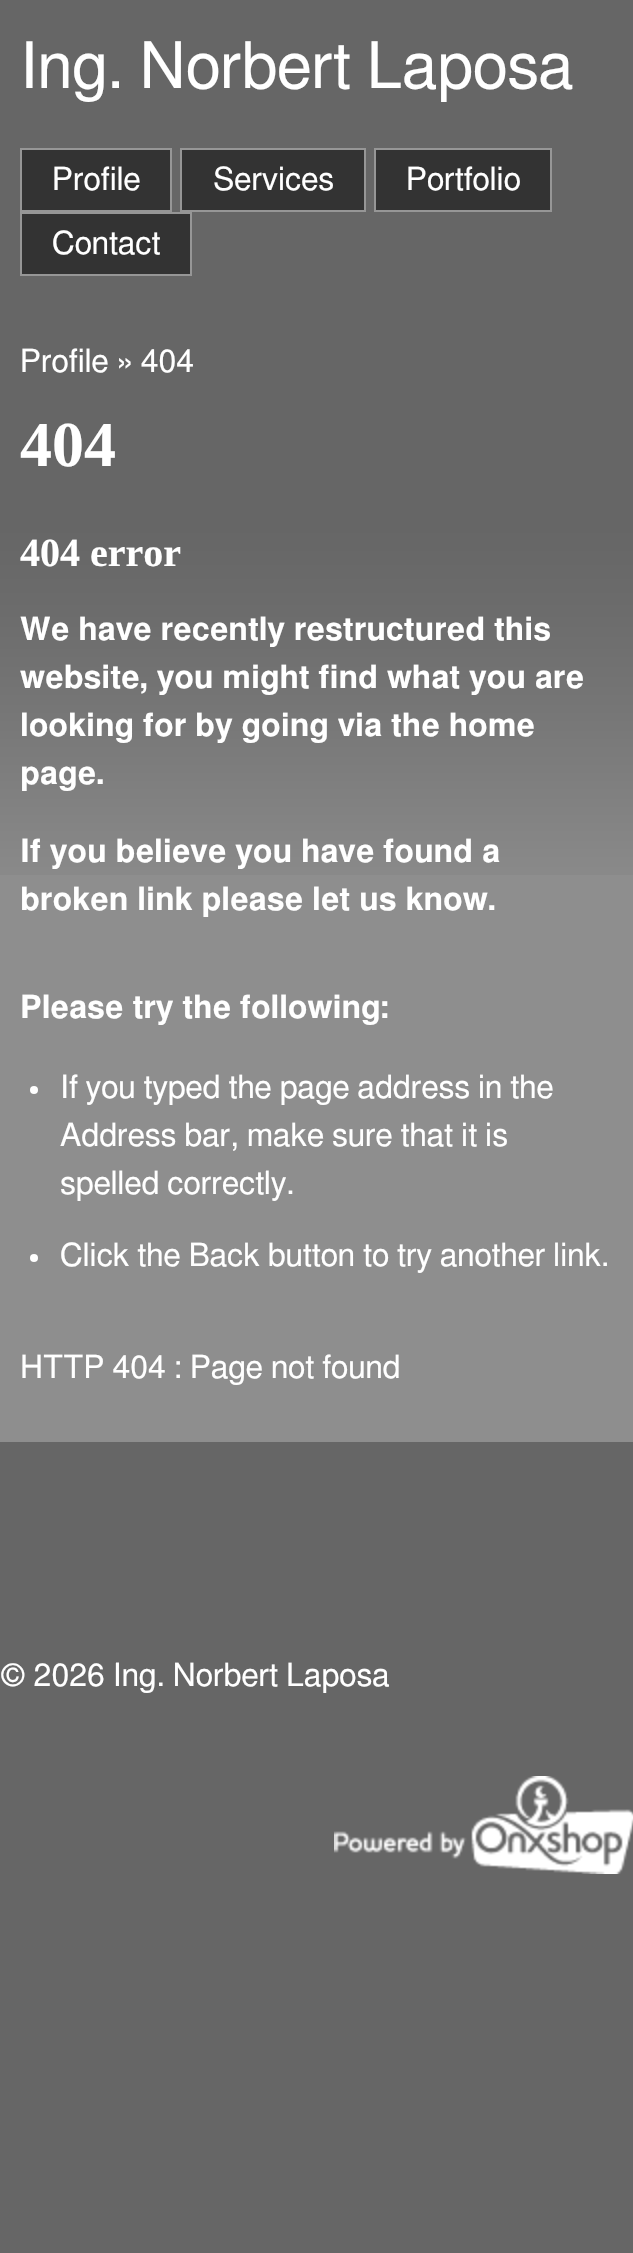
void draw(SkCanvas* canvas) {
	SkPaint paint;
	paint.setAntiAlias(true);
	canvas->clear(0xff666666);
	SkFont f1(fontMgr->matchFamilyStyle("FreeSans", SkFontStyle::Normal()), 64);
	f1.setSubpixel(true);
	paint.setColor(0xffffffff);
	canvas->drawString("Ing. Norbert Laposa", 20, 88, f1, paint);
	paint.setColor(0xff333333);
	canvas->drawRect(SkRect::MakeXYWH(21, 149, 150, 62), paint);
	paint.setStroke(true);
	paint.setStrokeWidth(2);
	paint.setColor(0xff969696);
	canvas->drawRect(SkRect::MakeXYWH(21, 149, 150, 62), paint);
	SkFont f2(fontMgr->matchFamilyStyle("FreeSans", SkFontStyle::Normal()), 32);
	f2.setSubpixel(true);
	paint.setStroke(false);
	paint.setColor(0xffffffff);
	canvas->drawString("Profile", 52, 190, f2, paint);
	paint.setColor(0xff333333);
	canvas->drawRect(SkRect::MakeXYWH(181, 149, 184, 62), paint);
	paint.setStroke(true);
	paint.setColor(0xff969696);
	canvas->drawRect(SkRect::MakeXYWH(181, 149, 184, 62), paint);
	paint.setStroke(false);
	paint.setColor(0xffffffff);
	canvas->drawString("Services", 213, 190, f2, paint);
	paint.setColor(0xff333333);
	canvas->drawRect(SkRect::MakeXYWH(375, 149, 176, 62), paint);
	paint.setStroke(true);
	paint.setColor(0xff969696);
	canvas->drawRect(SkRect::MakeXYWH(375, 149, 176, 62), paint);
	paint.setStroke(false);
	paint.setColor(0xffffffff);
	canvas->drawString("Portfolio", 406, 190, f2, paint);
	paint.setColor(0xff333333);
	canvas->drawRect(SkRect::MakeXYWH(21, 213, 170, 62), paint);
	paint.setStroke(true);
	paint.setColor(0xff969696);
	canvas->drawRect(SkRect::MakeXYWH(21, 213, 170, 62), paint);
	paint.setStroke(false);
	paint.setColor(0xffffffff);
	canvas->drawString("Contact", 52, 254, f2, paint);
	paint.setColor(0xff8e8e8e);
	canvas->drawRect(SkRect::MakeXYWH(0, 875, 633, 567), paint);
	canvas->drawImageRect(SkImages::DeferredFromEncodedData(SkData::MakeFromFileName("img1.png")), SkRect::MakeXYWH(0, 338, 633, 537), SkSamplingOptions());
	paint.setColor(0xffffffff);
	canvas->drawString("Profile » 404", 20, 372, f2, paint);
	SkFont f3(fontMgr->matchFamilyStyle("Liberation Serif", SkFontStyle::Bold()), 64);
	f3.setSubpixel(true);
	canvas->drawString("404", 20, 466, f3, paint);
	SkFont f4(fontMgr->matchFamilyStyle("Liberation Serif", SkFontStyle::Bold()), 40);
	f4.setSubpixel(true);
	canvas->drawString("404 error", 20, 566, f4, paint);
	SkFont f5(fontMgr->matchFamilyStyle("FreeSans", SkFontStyle(600, SkFontStyle::kNormal_Width, SkFontStyle::kUpright_Slant)), 32);
	f5.setSubpixel(true);
	canvas->drawString("We have recently restructured this", 20, 640, f5, paint);
	canvas->drawString("website, you might find what you are", 20, 688, f5, paint);
	canvas->drawString("looking for by going via the home", 20, 736, f5, paint);
	canvas->drawString("page.", 20, 784, f5, paint);
	canvas->drawString("If you believe you have found a", 20, 862, f5, paint);
	canvas->drawString("broken link please let us know.", 20, 910, f5, paint);
	canvas->drawString("Please try the following:", 20, 1018, f5, paint);
	canvas->drawCircle(34, 1090, 4, paint);
	canvas->drawString("If you typed the page address in the", 60, 1098, f2, paint);
	canvas->drawString("Address bar, make sure that it is", 60, 1146, f2, paint);
	canvas->drawString("spelled correctly.", 60, 1194, f2, paint);
	canvas->drawCircle(34, 1258, 4, paint);
	canvas->drawString("Click the Back button to try another link.", 60, 1266, f2, paint);
	canvas->drawString("HTTP 404 : Page not found", 20, 1378, f2, paint);
	canvas->drawString("© 2026 Ing. Norbert Laposa", 0, 1686, f2, paint);
	canvas->drawImageRect(SkImages::DeferredFromEncodedData(SkData::MakeFromFileName("img2.png")), SkRect::MakeXYWH(334, 1776, 299, 98), SkSamplingOptions());
}
